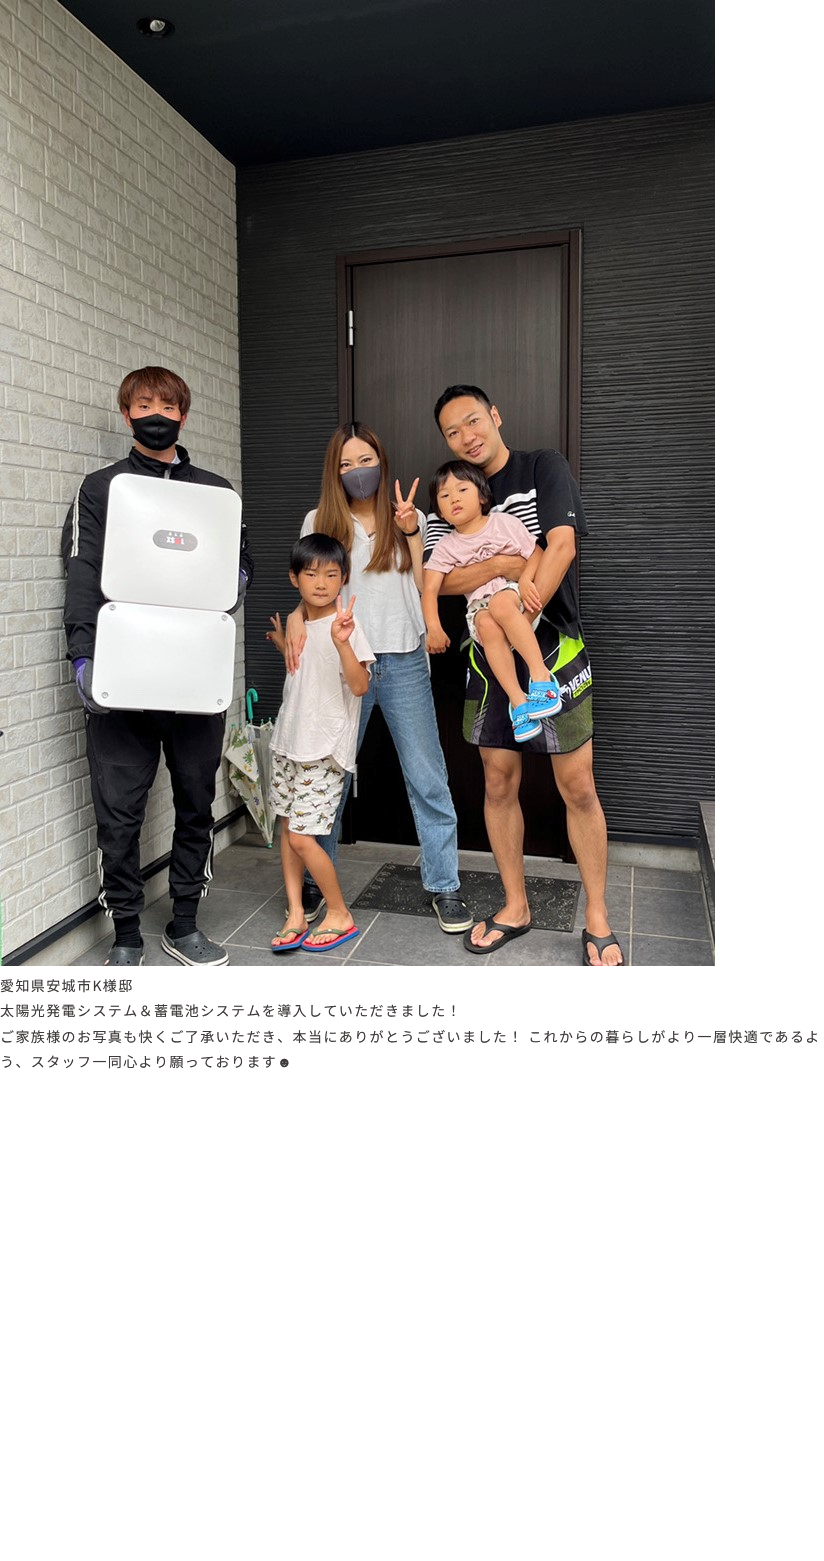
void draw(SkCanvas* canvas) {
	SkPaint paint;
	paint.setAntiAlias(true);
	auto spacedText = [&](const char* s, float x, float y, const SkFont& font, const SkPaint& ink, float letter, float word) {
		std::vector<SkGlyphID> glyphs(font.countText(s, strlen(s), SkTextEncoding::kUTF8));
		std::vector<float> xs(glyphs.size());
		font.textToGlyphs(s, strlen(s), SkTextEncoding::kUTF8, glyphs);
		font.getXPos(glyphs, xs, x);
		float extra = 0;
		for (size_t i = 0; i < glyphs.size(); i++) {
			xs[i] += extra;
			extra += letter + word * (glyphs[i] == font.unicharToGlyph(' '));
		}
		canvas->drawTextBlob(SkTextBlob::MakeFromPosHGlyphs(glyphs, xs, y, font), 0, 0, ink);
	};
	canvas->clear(0xffffffff);
	canvas->drawImageRect(SkImages::DeferredFromEncodedData(SkData::MakeFromFileName("img1.png")), SkRect::MakeXYWH(0, 0, 715, 966), SkSamplingOptions());
	SkFont f1(fontMgr->matchFamilyStyle("Noto Sans JP", SkFontStyle::Normal()), 14);
	f1.setSubpixel(true);
	paint.setColor(0xff3e3a39);
	spacedText("愛知県安城市K様邸", 0, 991, f1, paint, 1.4, 0);
	spacedText("太陽光発電システム＆蓄電池システムを導入していただきました！", 0, 1016, f1, paint, 1.4, 0);
	spacedText("ご家族様のお写真も快くご了承いただき、本当にありがとうございました！ これからの暮らしがより一層快適であるよ", 0, 1042, f1, paint, 1.4, 0);
	spacedText("う、スタッフ一同心より願っております", 0, 1067, f1, paint, 1.4, 0);
	SkFont f2(fontMgr->matchFamilyStyle("Liberation Sans", SkFontStyle::Normal()), 14);
	f2.setSubpixel(true);
	spacedText("☻", 277, 1067, f2, paint, 1.4, 0);
}
